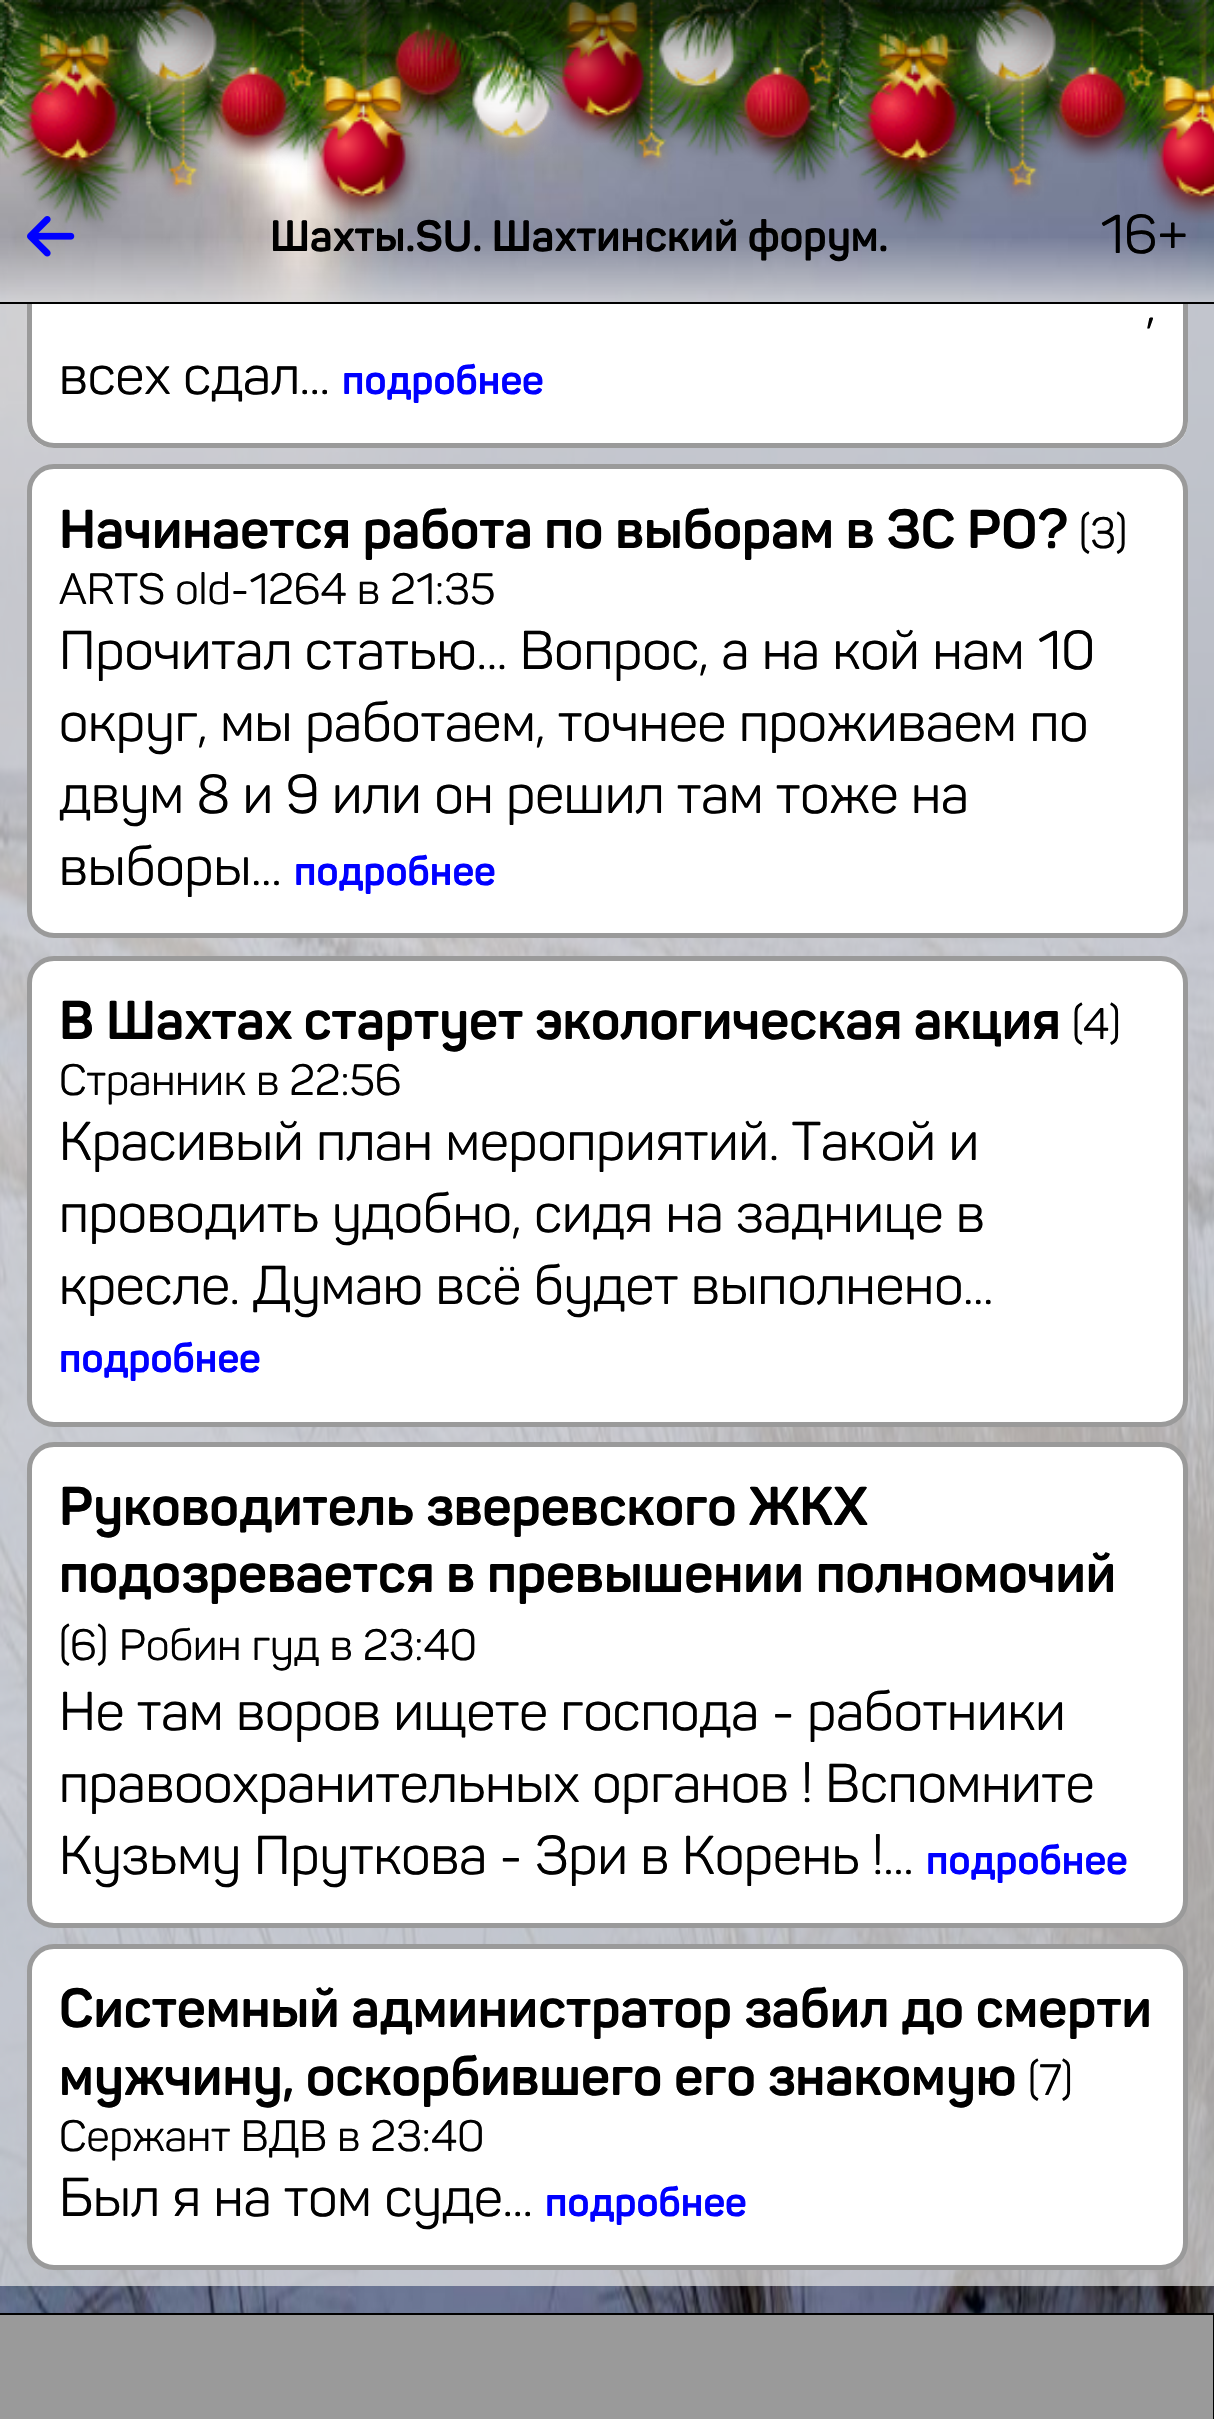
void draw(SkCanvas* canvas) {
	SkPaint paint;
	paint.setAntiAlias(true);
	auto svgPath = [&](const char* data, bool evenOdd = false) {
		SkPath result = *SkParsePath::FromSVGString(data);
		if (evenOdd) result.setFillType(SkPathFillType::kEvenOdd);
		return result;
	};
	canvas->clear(0xffffffff);
	canvas->drawImageRect(SkImages::DeferredFromEncodedData(SkData::MakeFromFileName("img1.png")), SkRect::MakeXYWH(0, 0, 1214, 2313), SkSamplingOptions());
	canvas->drawImageRect(SkImages::DeferredFromEncodedData(SkData::MakeFromFileName("img2.png")), SkRect::MakeXYWH(0, 0, 1214, 240), SkSamplingOptions());
	canvas->drawImageRect(SkImages::DeferredFromEncodedData(SkData::MakeFromFileName("img4.png")), SkRect::MakeXYWH(15, 0, 115, 183), SkSamplingOptions());
	canvas->drawImageRect(SkImages::DeferredFromEncodedData(SkData::MakeFromFileName("img3.png")), SkRect::MakeXYWH(0, 0, 57, 160), SkSamplingOptions());
	canvas->drawImageRect(SkImages::DeferredFromEncodedData(SkData::MakeFromFileName("img6.png")), SkRect::MakeXYWH(122, 0, 109, 106), SkSamplingOptions());
	canvas->drawImageRect(SkImages::DeferredFromEncodedData(SkData::MakeFromFileName("img5.png")), SkRect::MakeXYWH(56, 0, 137, 61), SkSamplingOptions());
	canvas->drawImageRect(SkImages::DeferredFromEncodedData(SkData::MakeFromFileName("img7.png")), SkRect::MakeXYWH(307, 0, 113, 223), SkSamplingOptions());
	canvas->drawImageRect(SkImages::DeferredFromEncodedData(SkData::MakeFromFileName("img8.png")), SkRect::MakeXYWH(382, 0, 91, 120), SkSamplingOptions());
	canvas->drawImageRect(SkImages::DeferredFromEncodedData(SkData::MakeFromFileName("img14.png")), SkRect::MakeXYWH(459, 13, 98, 147), SkSamplingOptions());
	canvas->drawImageRect(SkImages::DeferredFromEncodedData(SkData::MakeFromFileName("img9.png")), SkRect::MakeXYWH(398, 0, 64, 70), SkSamplingOptions());
	canvas->drawImageRect(SkImages::DeferredFromEncodedData(SkData::MakeFromFileName("img11.png")), SkRect::MakeXYWH(548, 0, 108, 143), SkSamplingOptions());
	canvas->drawImageRect(SkImages::DeferredFromEncodedData(SkData::MakeFromFileName("img10.png")), SkRect::MakeXYWH(461, 0, 113, 113), SkSamplingOptions());
	canvas->drawImageRect(SkImages::DeferredFromEncodedData(SkData::MakeFromFileName("img12.png")), SkRect::MakeXYWH(646, 0, 103, 111), SkSamplingOptions());
	canvas->drawImageRect(SkImages::DeferredFromEncodedData(SkData::MakeFromFileName("img13.png")), SkRect::MakeXYWH(207, 20, 92, 144), SkSamplingOptions());
	canvas->drawImageRect(SkImages::DeferredFromEncodedData(SkData::MakeFromFileName("img17.png")), SkRect::MakeXYWH(733, 22, 90, 141), SkSamplingOptions());
	canvas->drawImageRect(SkImages::DeferredFromEncodedData(SkData::MakeFromFileName("img15.png")), SkRect::MakeXYWH(650, 0, 176, 63), SkSamplingOptions());
	canvas->drawImageRect(SkImages::DeferredFromEncodedData(SkData::MakeFromFileName("img16.png")), SkRect::MakeXYWH(825, 0, 15, 155), SkSamplingOptions());
	canvas->drawImageRect(SkImages::DeferredFromEncodedData(SkData::MakeFromFileName("img19.png")), SkRect::MakeXYWH(854, 0, 115, 183), SkSamplingOptions());
	canvas->drawImageRect(SkImages::DeferredFromEncodedData(SkData::MakeFromFileName("img18.png")), SkRect::MakeXYWH(839, 0, 57, 160), SkSamplingOptions());
	canvas->drawImageRect(SkImages::DeferredFromEncodedData(SkData::MakeFromFileName("img21.png")), SkRect::MakeXYWH(961, 0, 110, 106), SkSamplingOptions());
	canvas->drawImageRect(SkImages::DeferredFromEncodedData(SkData::MakeFromFileName("img20.png")), SkRect::MakeXYWH(895, 0, 138, 61), SkSamplingOptions());
	canvas->drawImageRect(SkImages::DeferredFromEncodedData(SkData::MakeFromFileName("img22.png")), SkRect::MakeXYWH(1047, 20, 91, 143), SkSamplingOptions());
	canvas->drawImageRect(SkImages::DeferredFromEncodedData(SkData::MakeFromFileName("img23.png")), SkRect::MakeXYWH(1147, 0, 67, 223), SkSamplingOptions());
	{
		const SkColor colors[] = {0xb3e7e7e7, 0x00e7e7e7};
		const float stops[] = {0, 0.5};
		const SkPoint ends[] = {{608, 302}, {608, 169}};
		paint.setShader(SkGradientShader::MakeLinear(ends, colors, stops, 2, SkTileMode::kClamp));
		paint.setAlpha(255);
	}
	canvas->drawRect(SkRect::MakeXYWH(0, 238, 1214, 64), paint);
	paint.setShader(nullptr);
	paint.setColor(0xff000000);
	canvas->drawRect(SkRect::MakeXYWH(0, 302, 1214, 2), paint);
	canvas->drawImageRect(SkImages::DeferredFromEncodedData(SkData::MakeFromFileName("img24.png")), SkRect::MakeXYWH(27, 216, 48, 41), SkSamplingOptions());
	SkFont f1(fontMgr->matchFamilyStyle("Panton", SkFontStyle::Normal()), 54);
	f1.setSubpixel(true);
	canvas->drawString("16+", 1100, 253, f1, paint);
	paint.setColor(0xb3e7e7e7);
	canvas->drawRect(SkRect::MakeXYWH(0, 304, 1214, 1982), paint);
	paint.setColor(0xffffffff);
	canvas->drawPath(svgPath("M27 304H1188V421C1188 436 1176 448 1161 448H54C39 448 27 436 27 421Z"), paint);
	canvas->save();
	canvas->clipRect(SkRect::MakeXYWH(0, 304, 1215, 1982));
	paint.setStroke(true);
	paint.setStrokeWidth(5);
	paint.setColor(0xff9a9a9a);
	canvas->drawRoundRect(SkRect::MakeXYWH(29.5, -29.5, 1156, 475), 24.5, 24.5, paint);
	canvas->restore();
	paint.setStroke(false);
	paint.setColor(0xbf000000);
	paint.setMaskFilter(SkMaskFilter::MakeBlur(kNormal_SkBlurStyle, 34));
	canvas->drawRect(SkRect::MakeXYWH(0, -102, 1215, 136), paint);
	paint.setMaskFilter(nullptr);
	SkFont f2(fontMgr->matchFamilyStyle("Panton", SkFontStyle::Bold()), 43.25);
	f2.setSubpixel(true);
	paint.setColor(0xff000000);
	canvas->drawString("Шахты.SU. Шахтинский форум.", 270, 251, f2, paint);
	canvas->drawString(",", 1146, 322, f1, paint);
	canvas->drawString("всех сдал...", 59, 394, f1, paint);
	SkFont f3(fontMgr->matchFamilyStyle("Panton", SkFontStyle::Bold()), 40.5);
	f3.setSubpixel(true);
	paint.setColor(0xff0000ff);
	canvas->drawString("подробнее", 342, 394, f3, paint);
	paint.setColor(0xffffffff);
	canvas->drawRoundRect(SkRect::MakeXYWH(29.5, 466.5, 1156, 469), 24.5, 24.5, paint);
	paint.setStroke(true);
	paint.setColor(0xff9a9a9a);
	canvas->drawRoundRect(SkRect::MakeXYWH(29.5, 466.5, 1156, 469), 24.5, 24.5, paint);
	SkFont f4(fontMgr->matchFamilyStyle("Panton", SkFontStyle::Bold()), 54);
	f4.setSubpixel(true);
	paint.setStroke(false);
	paint.setColor(0xff000000);
	canvas->drawString("Начинается работа по выборам в ЗС РО?", 59, 548, f4, paint);
	SkFont f5(fontMgr->matchFamilyStyle("Panton", SkFontStyle::Normal()), 43.25);
	f5.setSubpixel(true);
	canvas->drawString("(3)", 1079, 548, f5, paint);
	canvas->drawString("ARTS old-1264 в 21:35", 59, 604, f5, paint);
	canvas->drawString("Прочитал статью... Вопрос, а на кой нам 10", 59, 669, f1, paint);
	canvas->drawString("округ, мы работаем, точнее проживаем по", 59, 741, f1, paint);
	canvas->drawString("двум 8 и 9 или он решил там тоже на", 59, 813, f1, paint);
	canvas->drawString("выборы...", 59, 885, f1, paint);
	paint.setColor(0xff0000ff);
	canvas->drawString("подробнее", 294, 885, f3, paint);
	paint.setColor(0xffffffff);
	canvas->drawRoundRect(SkRect::MakeXYWH(29.5, 958.5, 1156, 466), 24.5, 24.5, paint);
	paint.setStroke(true);
	paint.setColor(0xff9a9a9a);
	canvas->drawRoundRect(SkRect::MakeXYWH(29.5, 958.5, 1156, 466), 24.5, 24.5, paint);
	paint.setStroke(false);
	paint.setColor(0xff000000);
	canvas->drawString("В Шахтах стартует экологическая акция", 59, 1039, f4, paint);
	canvas->drawString("(4)", 1072, 1039, f5, paint);
	canvas->drawString("Странник в 22:56", 59, 1095, f5, paint);
	canvas->drawString("Красивый план мероприятий. Такой и", 59, 1160, f1, paint);
	canvas->drawString("проводить удобно, сидя на заднице в", 59, 1232, f1, paint);
	canvas->drawString("кресле. Думаю всё будет выполнено...", 59, 1304, f1, paint);
	paint.setColor(0xff0000ff);
	canvas->drawString("подробнее", 59, 1372, f3, paint);
	paint.setColor(0xffffffff);
	canvas->drawRoundRect(SkRect::MakeXYWH(29.5, 1444.5, 1156, 481), 24.5, 24.5, paint);
	paint.setStroke(true);
	paint.setColor(0xff9a9a9a);
	canvas->drawRoundRect(SkRect::MakeXYWH(29.5, 1444.5, 1156, 481), 24.5, 24.5, paint);
	paint.setStroke(false);
	paint.setColor(0xff000000);
	canvas->drawString("Руководитель зверевского ЖКХ", 59, 1525, f4, paint);
	canvas->drawString("подозревается в превышении полномочий", 59, 1592, f4, paint);
	canvas->drawString("(6)", 59, 1660, f5, paint);
	canvas->drawString("Робин гуд в 23:40", 119, 1660, f5, paint);
	canvas->drawString("Не там воров ищете господа - работники", 59, 1730, f1, paint);
	canvas->drawString("правоохранительных органов ! Вспомните", 59, 1802, f1, paint);
	canvas->drawString("Кузьму Пруткова - Зри в Корень !...", 59, 1874, f1, paint);
	paint.setColor(0xff0000ff);
	canvas->drawString("подробнее", 926, 1874, f3, paint);
	paint.setColor(0xffffffff);
	canvas->drawRoundRect(SkRect::MakeXYWH(29.5, 1946.5, 1156, 321), 24.5, 24.5, paint);
	paint.setStroke(true);
	paint.setColor(0xff9a9a9a);
	canvas->drawRoundRect(SkRect::MakeXYWH(29.5, 1946.5, 1156, 321), 24.5, 24.5, paint);
	paint.setStroke(false);
	paint.setColor(0xff000000);
	canvas->drawString("Системный администратор забил до смерти", 59, 2027, f4, paint);
	canvas->drawString("мужчину, оскорбившего его знакомую", 59, 2095, f4, paint);
	canvas->drawString("(7)", 1028, 2095, f5, paint);
	canvas->drawString("Сержант ВДВ в 23:40", 59, 2151, f5, paint);
	canvas->drawString("Был я на том суде...", 59, 2216, f1, paint);
	paint.setColor(0xff0000ff);
	canvas->drawString("подробнее", 545, 2216, f3, paint);
	paint.setColor(0xff000000);
	canvas->drawRect(SkRect::MakeXYWH(0, 2313, 1214, 2), paint);
	paint.setColor(0xff9a9a9a);
	canvas->drawRect(SkRect::MakeXYWH(0, 2315, 1213, 104), paint);
	paint.setColor(0xff000000);
	canvas->drawRect(SkRect::MakeXYWH(1213, 2315, 1, 104), paint);
}
